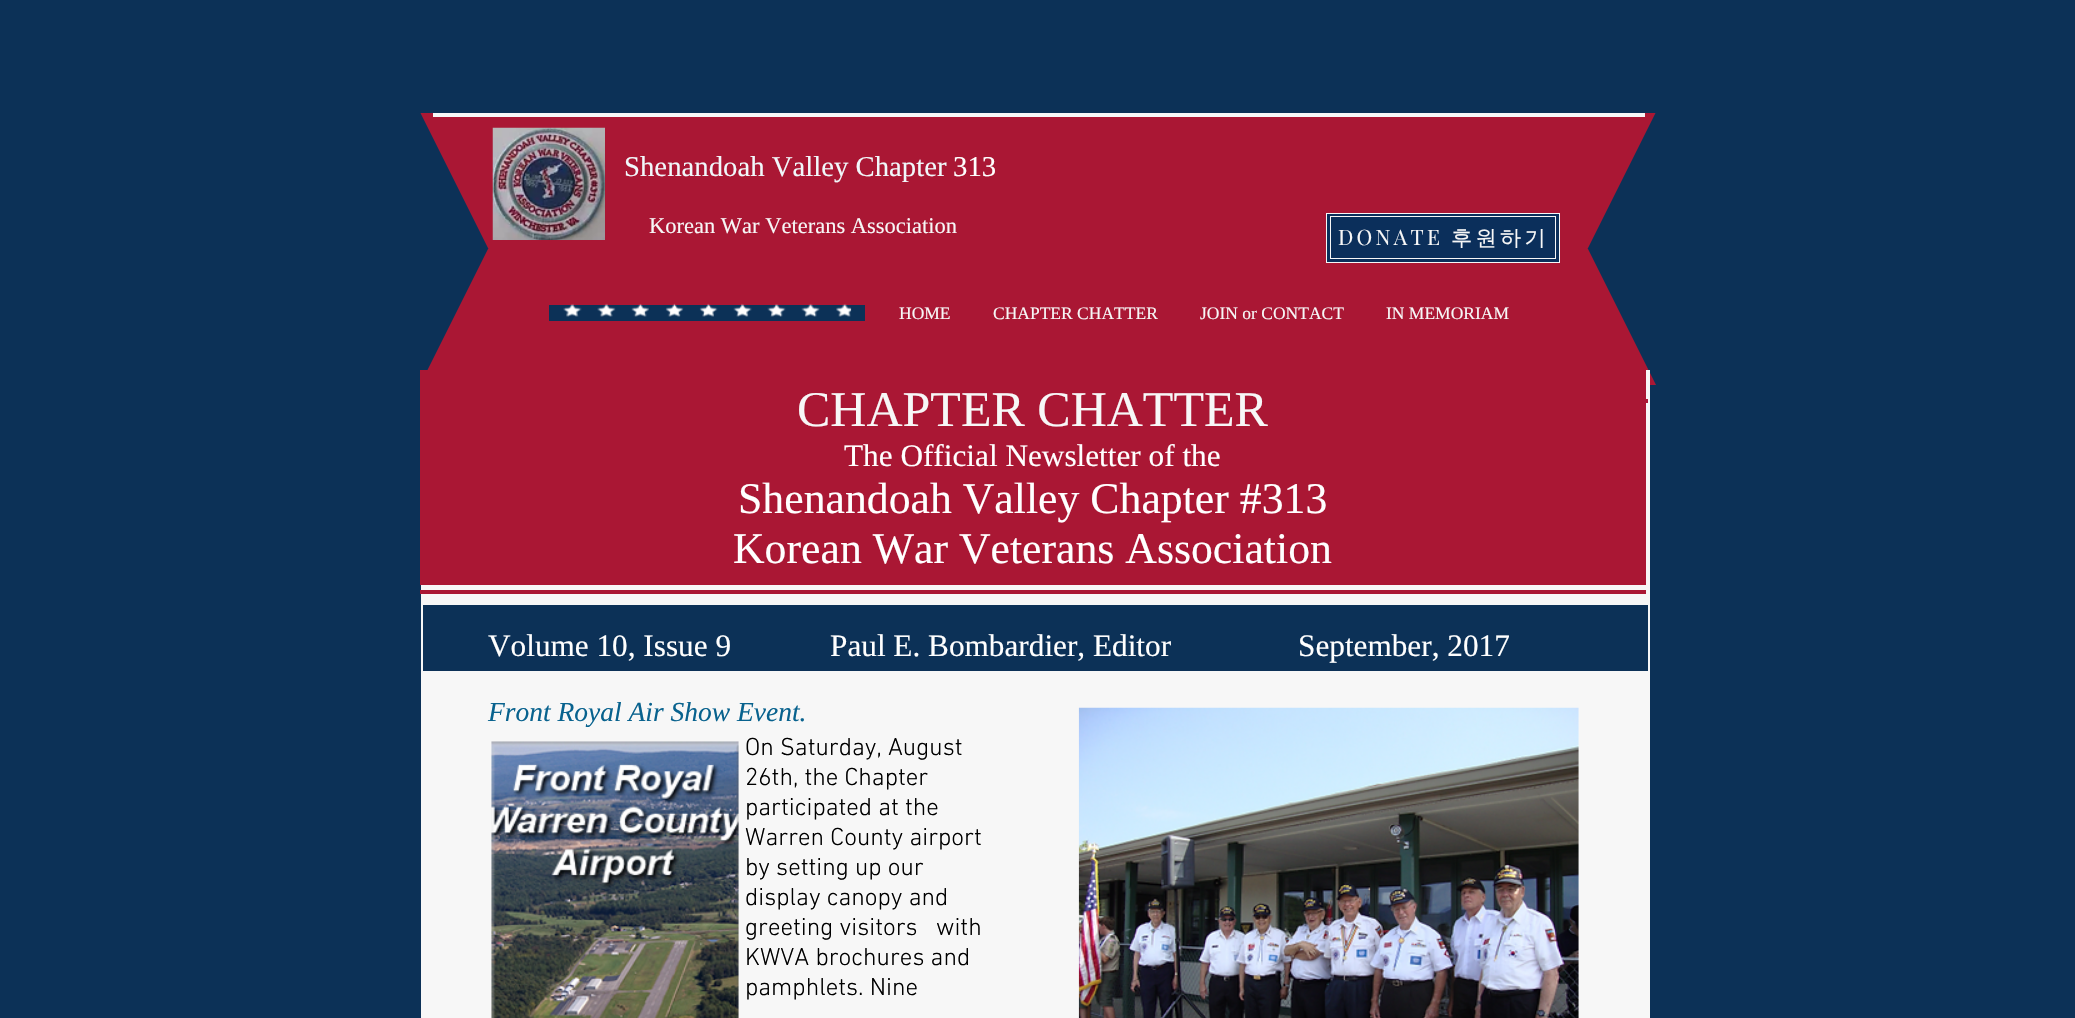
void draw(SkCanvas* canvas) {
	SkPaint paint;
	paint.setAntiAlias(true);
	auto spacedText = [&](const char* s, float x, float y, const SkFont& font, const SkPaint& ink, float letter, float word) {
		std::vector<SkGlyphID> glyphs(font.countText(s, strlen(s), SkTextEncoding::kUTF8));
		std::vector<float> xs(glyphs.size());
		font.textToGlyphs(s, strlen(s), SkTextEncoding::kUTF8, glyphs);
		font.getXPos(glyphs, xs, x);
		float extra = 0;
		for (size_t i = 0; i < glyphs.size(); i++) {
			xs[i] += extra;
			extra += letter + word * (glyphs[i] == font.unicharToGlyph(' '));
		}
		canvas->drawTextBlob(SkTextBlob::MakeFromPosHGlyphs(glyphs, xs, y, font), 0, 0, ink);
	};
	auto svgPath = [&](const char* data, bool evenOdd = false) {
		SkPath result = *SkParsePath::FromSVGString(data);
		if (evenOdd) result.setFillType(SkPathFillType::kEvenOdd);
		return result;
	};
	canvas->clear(0xff0c3157);
	canvas->save();
	canvas->clipRect(SkRect::MakeXYWH(420, 113, 619, 137));
	paint.setColor(0xffaa1734);
	canvas->drawPath(svgPath("M420 112H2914L1664 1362H1045Z"), paint);
	canvas->restore();
	canvas->save();
	canvas->clipRect(SkRect::MakeXYWH(1038, 113, 618, 137));
	canvas->drawPath(svgPath("M-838 112H1656L1031 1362H412Z"), paint);
	canvas->restore();
	paint.setColor(0xfff7f7f7);
	canvas->drawRect(SkRect::MakeXYWH(433, 113, 1212, 4), paint);
	canvas->drawImageRect(SkImages::DeferredFromEncodedData(SkData::MakeFromFileName("img1.png")), SkRect::MakeXYWH(492, 127, 113, 113), SkSamplingOptions());
	SkFont f1(fontMgr->matchFamilyStyle("Liberation Serif", SkFontStyle::Normal()), 28.75);
	f1.setSubpixel(true);
	paint.setColor(0xfff1f8fb);
	canvas->drawString("Shenandoah Valley Chapter", 624, 176, f1, paint);
	paint.setColor(0xffffffff);
	canvas->drawString("313", 953, 176, f1, paint);
	SkFont f2(fontMgr->matchFamilyStyle("Liberation Serif", SkFontStyle::Normal()), 22.5);
	f2.setSubpixel(true);
	paint.setColor(0xfff7f7f7);
	canvas->drawString("Korean War Veterans Association", 649, 233, f2, paint);
	canvas->save();
	canvas->clipRect(SkRect::MakeXYWH(420, 249, 619, 136));
	paint.setColor(0xffaa1734);
	canvas->drawPath(svgPath("M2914 385H420L1045-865H1664Z"), paint);
	canvas->restore();
	canvas->save();
	canvas->clipRect(SkRect::MakeXYWH(1038, 249, 618, 136));
	canvas->drawPath(svgPath("M1656 385H-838L412-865H1031Z"), paint);
	canvas->restore();
	paint.setColor(0xff0b2f5b);
	canvas->drawRect(SkRect::MakeXYWH(1326.5, 213.5, 233, 49), paint);
	paint.setStroke(true);
	paint.setStrokeWidth(1);
	paint.setColor(0xfff7f7f7);
	canvas->drawRect(SkRect::MakeXYWH(1326.5, 213.5, 233, 49), paint);
	canvas->drawRect(SkRect::MakeXYWH(1330.5, 216.5, 225, 42), paint);
	SkFont f3(fontMgr->matchFamilyStyle("Playfair Display", SkFontStyle::Normal()), 21.25);
	f3.setSubpixel(true);
	paint.setStroke(false);
	spacedText("DONATE", 1338, 245, f3, paint, 3.25, 0);
	SkFont f4(fontMgr->matchFamilyStyle("WenQuanYi Zen Hei", SkFontStyle(500, SkFontStyle::kNormal_Width, SkFontStyle::kUpright_Slant)), 21.25);
	f4.setSubpixel(true);
	spacedText("후원하기", 1451, 245, f4, paint, 3.25, 0);
	paint.setColor(0xff0c3157);
	canvas->drawRect(SkRect::MakeXYWH(549, 305, 316, 16), paint);
	canvas->drawImageRect(SkImages::DeferredFromEncodedData(SkData::MakeFromFileName("img2.png")), SkRect::MakeXYWH(563, 303, 289, 14), SkSamplingOptions());
	SkFont f5(fontMgr->matchFamilyStyle("Liberation Serif", SkFontStyle::Normal()), 17.5);
	f5.setSubpixel(true);
	paint.setColor(0xfff7f7f7);
	canvas->drawString("HOME", 899, 319, f5, paint);
	canvas->drawString("CHAPTER CHATTER", 993, 319, f5, paint);
	canvas->drawString("JOIN or CONTACT", 1200, 319, f5, paint);
	canvas->drawString("IN MEMORIAM", 1386, 319, f5, paint);
	canvas->drawRect(SkRect::MakeXYWH(421, 370, 1229, 648), paint);
	paint.setColor(0xffaa1734);
	canvas->drawRect(SkRect::MakeXYWH(420, 370, 1226, 215), paint);
	SkFont f6(fontMgr->matchFamilyStyle("Liberation Serif", SkFontStyle::Normal()), 50);
	f6.setSubpixel(true);
	paint.setColor(0xfff7f7f7);
	canvas->drawString("CHAPTER CHATTER", 797, 426, f6, paint);
	SkFont f7(fontMgr->matchFamilyStyle("Liberation Serif", SkFontStyle::Normal()), 31.25);
	f7.setSubpixel(true);
	paint.setColor(0xffffffff);
	canvas->drawString("The Official Newsletter of the", 844, 466, f7, paint);
	SkFont f8(fontMgr->matchFamilyStyle("Liberation Serif", SkFontStyle::Normal()), 43.75);
	f8.setSubpixel(true);
	canvas->drawString("Shenandoah Valley Chapter #313", 738, 513, f8, paint);
	canvas->drawString("Korean War Veterans Association", 733, 563, f8, paint);
	paint.setColor(0xffaa1734);
	canvas->drawRect(SkRect::MakeXYWH(1646, 399, 2, 4), paint);
	canvas->drawRect(SkRect::MakeXYWH(420, 590, 1226, 4), paint);
	paint.setColor(0xff0c3157);
	canvas->drawRect(SkRect::MakeXYWH(423, 605, 1225, 66), paint);
	paint.setColor(0xffffffff);
	canvas->drawString("Volume 10, Issue 9", 488, 656, f7, paint);
	canvas->drawString("Paul E. Bombardier, Editor", 830, 656, f7, paint);
	canvas->drawString("September, 2017", 1298, 656, f7, paint);
	SkFont f9(fontMgr->matchFamilyStyle("Liberation Serif", SkFontStyle::Italic()), 27.5);
	f9.setSubpixel(true);
	paint.setColor(0xff08628e);
	canvas->drawString("Front Royal Air Show Event.", 488, 721, f9, paint);
	SkFont f10(fontMgr->matchFamilyStyle("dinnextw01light", SkFontStyle(300, SkFontStyle::kNormal_Width, SkFontStyle::kUpright_Slant)), 25);
	f10.setSubpixel(true);
	paint.setColor(0xff000000);
	canvas->drawString("On Saturday, August", 745, 755, f10, paint);
	canvas->drawString("26th, the Chapter", 745, 785, f10, paint);
	canvas->drawString("participated at the", 745, 815, f10, paint);
	canvas->drawString("Warren County airport", 745, 845, f10, paint);
	canvas->drawString("by setting up our", 745, 875, f10, paint);
	canvas->drawString("display canopy and", 745, 905, f10, paint);
	canvas->drawString("greeting visitors   with", 745, 935, f10, paint);
	canvas->drawString("KWVA brochures and", 745, 965, f10, paint);
	canvas->drawString("pamphlets. Nine", 745, 995, f10, paint);
	canvas->drawImageRect(SkImages::DeferredFromEncodedData(SkData::MakeFromFileName("img3.png")), SkRect::MakeXYWH(1078, 707, 501, 311), SkSamplingOptions());
	canvas->drawImageRect(SkImages::DeferredFromEncodedData(SkData::MakeFromFileName("img4.png")), SkRect::MakeXYWH(491, 741, 248, 277), SkSamplingOptions());
}
